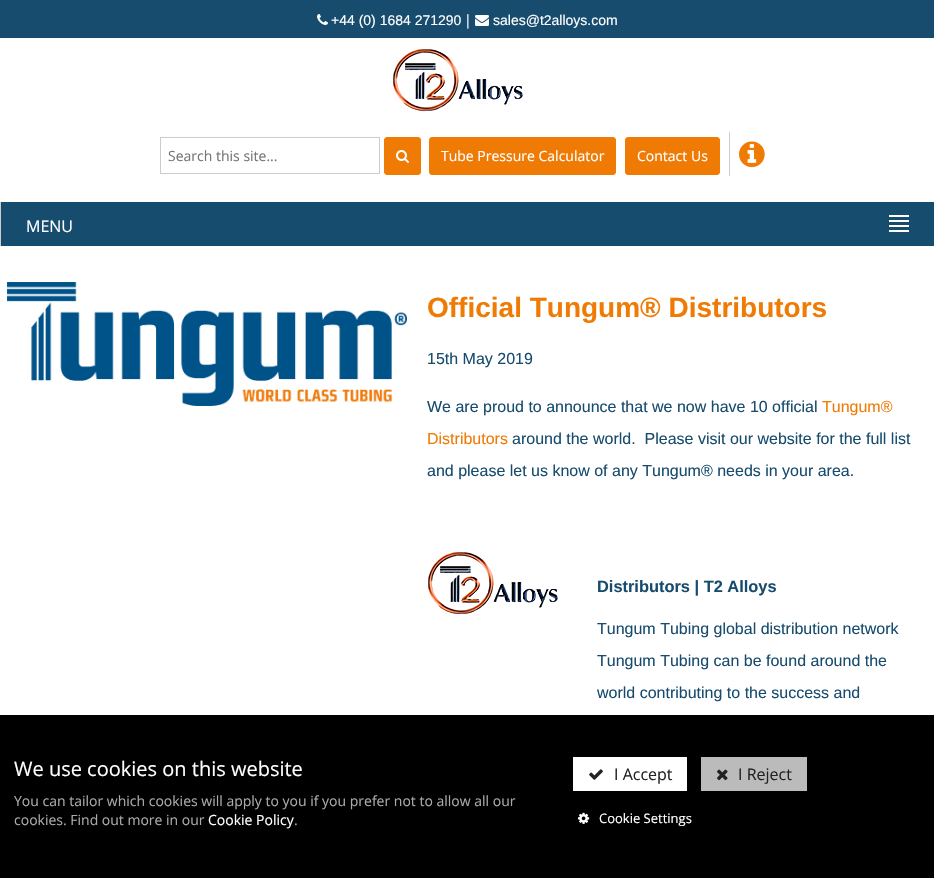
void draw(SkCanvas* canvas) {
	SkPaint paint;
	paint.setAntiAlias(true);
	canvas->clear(0xffffffff);
	paint.setColor(0xff174c6e);
	canvas->drawRect(SkRect::MakeXYWH(0, 0, 934, 38), paint);
	canvas->drawImageRect(SkImages::DeferredFromEncodedData(SkData::MakeFromFileName("img1.png")), SkRect::MakeXYWH(317, 14, 11, 11), SkSamplingOptions());
	SkFont f1(fontMgr->matchFamilyStyle("Liberation Sans", SkFontStyle::Normal()), 14);
	f1.setSubpixel(true);
	paint.setColor(0xffffffff);
	canvas->drawString("+44 (0) 1684 271290", 331, 25, f1, paint);
	SkFont f2(fontMgr->matchFamilyStyle("Open Sans", SkFontStyle::Normal()), 14);
	f2.setSubpixel(true);
	canvas->drawString("|", 464, 25, f2, paint);
	canvas->drawImageRect(SkImages::DeferredFromEncodedData(SkData::MakeFromFileName("img2.png")), SkRect::MakeXYWH(475, 15, 14, 11), SkSamplingOptions());
	canvas->drawString("sales@t2alloys.com", 493, 25, f1, paint);
	canvas->drawImageRect(SkImages::DeferredFromEncodedData(SkData::MakeFromFileName("img3.png")), SkRect::MakeXYWH(393, 49, 130, 63), SkSamplingOptions());
	paint.setStroke(true);
	paint.setStrokeWidth(1);
	paint.setColor(0xffcccccc);
	canvas->drawRect(SkRect::MakeXYWH(160.5, 137.5, 219, 36), paint);
	paint.setStroke(false);
	paint.setColor(0xff757575);
	canvas->drawString("Search this site...", 168, 161, f2, paint);
	paint.setColor(0xffef7b05);
	canvas->drawRoundRect(SkRect::MakeXYWH(384.5, 137.5, 36, 37), 2.5, 2.5, paint);
	paint.setStroke(true);
	canvas->drawRoundRect(SkRect::MakeXYWH(384.5, 137.5, 36, 37), 2.5, 2.5, paint);
	canvas->drawImageRect(SkImages::DeferredFromEncodedData(SkData::MakeFromFileName("img4.png")), SkRect::MakeXYWH(396, 150, 13, 13), SkSamplingOptions());
	paint.setStroke(false);
	canvas->drawRoundRect(SkRect::MakeXYWH(429.5, 137.5, 186, 37), 2.5, 2.5, paint);
	paint.setStroke(true);
	canvas->drawRoundRect(SkRect::MakeXYWH(429.5, 137.5, 186, 37), 2.5, 2.5, paint);
	paint.setStroke(false);
	paint.setColor(0xffffffff);
	canvas->drawString("Tube Pressure Calculator", 441, 161, f2, paint);
	paint.setColor(0xffef7b05);
	canvas->drawRoundRect(SkRect::MakeXYWH(625.5, 137.5, 94, 37), 2.5, 2.5, paint);
	paint.setStroke(true);
	canvas->drawRoundRect(SkRect::MakeXYWH(625.5, 137.5, 94, 37), 2.5, 2.5, paint);
	paint.setStroke(false);
	paint.setColor(0xffffffff);
	canvas->drawString("Contact Us", 637, 161, f2, paint);
	paint.setColor(0xffcccccc);
	canvas->drawRect(SkRect::MakeXYWH(729, 132, 1, 44), paint);
	canvas->drawImageRect(SkImages::DeferredFromEncodedData(SkData::MakeFromFileName("img5.png")), SkRect::MakeXYWH(739, 141, 26, 27), SkSamplingOptions());
	paint.setColor(0xff164c6e);
	canvas->drawRect(SkRect::MakeXYWH(1, 202, 933, 44), paint);
	paint.setColor(0xffcccccc);
	canvas->drawRect(SkRect::MakeXYWH(0, 202, 1, 44), paint);
	SkFont f3(fontMgr->matchFamilyStyle("Open Sans", SkFontStyle::Normal()), 16);
	f3.setSubpixel(true);
	paint.setColor(0xffffffff);
	canvas->drawString("MENU", 26, 232, f3, paint);
	canvas->drawRect(SkRect::MakeXYWH(889, 215, 20, 2), paint);
	canvas->drawRect(SkRect::MakeXYWH(889, 220, 20, 2), paint);
	canvas->drawRect(SkRect::MakeXYWH(889, 225, 20, 2), paint);
	canvas->drawRect(SkRect::MakeXYWH(889, 230, 20, 2), paint);
	canvas->drawImageRect(SkImages::DeferredFromEncodedData(SkData::MakeFromFileName("img6.png")), SkRect::MakeXYWH(7, 282, 400, 124), SkSamplingOptions());
	SkFont f4(fontMgr->matchFamilyStyle("Liberation Sans", SkFontStyle::Bold()), 28);
	f4.setSubpixel(true);
	paint.setColor(0xffef7b05);
	canvas->drawString("Official Tungum® Distributors", 427, 317, f4, paint);
	SkFont f5(fontMgr->matchFamilyStyle("Liberation Sans", SkFontStyle::Normal()), 16);
	f5.setSubpixel(true);
	paint.setColor(0xff174c6e);
	canvas->drawString("15th May 2019", 427, 364, f5, paint);
	canvas->drawString("We are proud to announce that we now have 10 official", 427, 412, f5, paint);
	paint.setColor(0xffef7b05);
	canvas->drawString("Tungum®", 822, 412, f5, paint);
	canvas->drawString("Distributors", 427, 444, f5, paint);
	paint.setColor(0xff174c6e);
	canvas->drawString("around the world.  Please visit our website for the full list", 512, 444, f5, paint);
	canvas->drawString("and please let us know of any Tungum® needs in your area.", 427, 476, f5, paint);
	canvas->drawImageRect(SkImages::DeferredFromEncodedData(SkData::MakeFromFileName("img3.png")), SkRect::MakeXYWH(428, 552, 130, 63), SkSamplingOptions());
	SkFont f6(fontMgr->matchFamilyStyle("Liberation Sans", SkFontStyle::Bold()), 16.4);
	f6.setSubpixel(true);
	canvas->drawString("Distributors | T2 Alloys", 597, 592, f6, paint);
	canvas->drawString("Tungum Tubing global distribution network", 597, 634, f5, paint);
	canvas->drawString("Tungum Tubing can be found around the", 597, 666, f5, paint);
	canvas->drawString("world contributing to the success and", 597, 698, f5, paint);
	paint.setColor(0xff000000);
	canvas->drawRect(SkRect::MakeXYWH(0, 715, 934, 163), paint);
	SkFont f7(fontMgr->matchFamilyStyle("Open Sans", SkFontStyle::Normal()), 20);
	f7.setSubpixel(true);
	paint.setColor(0xffffffff);
	canvas->drawString("We use cookies on this website", 14, 776, f7, paint);
	canvas->drawRect(SkRect::MakeXYWH(573, 757, 114, 34), paint);
	canvas->drawImageRect(SkImages::DeferredFromEncodedData(SkData::MakeFromFileName("img7.png")), SkRect::MakeXYWH(589, 769, 14, 11), SkSamplingOptions());
	paint.setColor(0xff222222);
	canvas->drawString("I Accept", 614, 780, f3, paint);
	paint.setColor(0xffbbbbbb);
	canvas->drawRect(SkRect::MakeXYWH(701, 757, 106, 34), paint);
	canvas->drawImageRect(SkImages::DeferredFromEncodedData(SkData::MakeFromFileName("img8.png")), SkRect::MakeXYWH(717, 769, 11, 12), SkSamplingOptions());
	paint.setColor(0xff222222);
	canvas->drawString("I Reject", 738, 780, f3, paint);
	canvas->drawImageRect(SkImages::DeferredFromEncodedData(SkData::MakeFromFileName("img9.png")), SkRect::MakeXYWH(578, 812, 12, 12), SkSamplingOptions());
	SkFont f8(fontMgr->matchFamilyStyle("Open Sans", SkFontStyle::Normal()), 13);
	f8.setSubpixel(true);
	paint.setColor(0xffffffff);
	canvas->drawString("Cookie Settings", 599, 823, f8, paint);
	paint.setColor(0xffaaaaaa);
	canvas->drawString("You can tailor which cookies will apply to you if you prefer not to allow all our", 14, 806, f2, paint);
	canvas->drawString("cookies. Find out more in our", 14, 825, f2, paint);
	paint.setColor(0xffffffff);
	canvas->drawString("Cookie Policy", 208, 825, f2, paint);
	paint.setColor(0xffaaaaaa);
	canvas->drawString(".", 294, 825, f2, paint);
}
